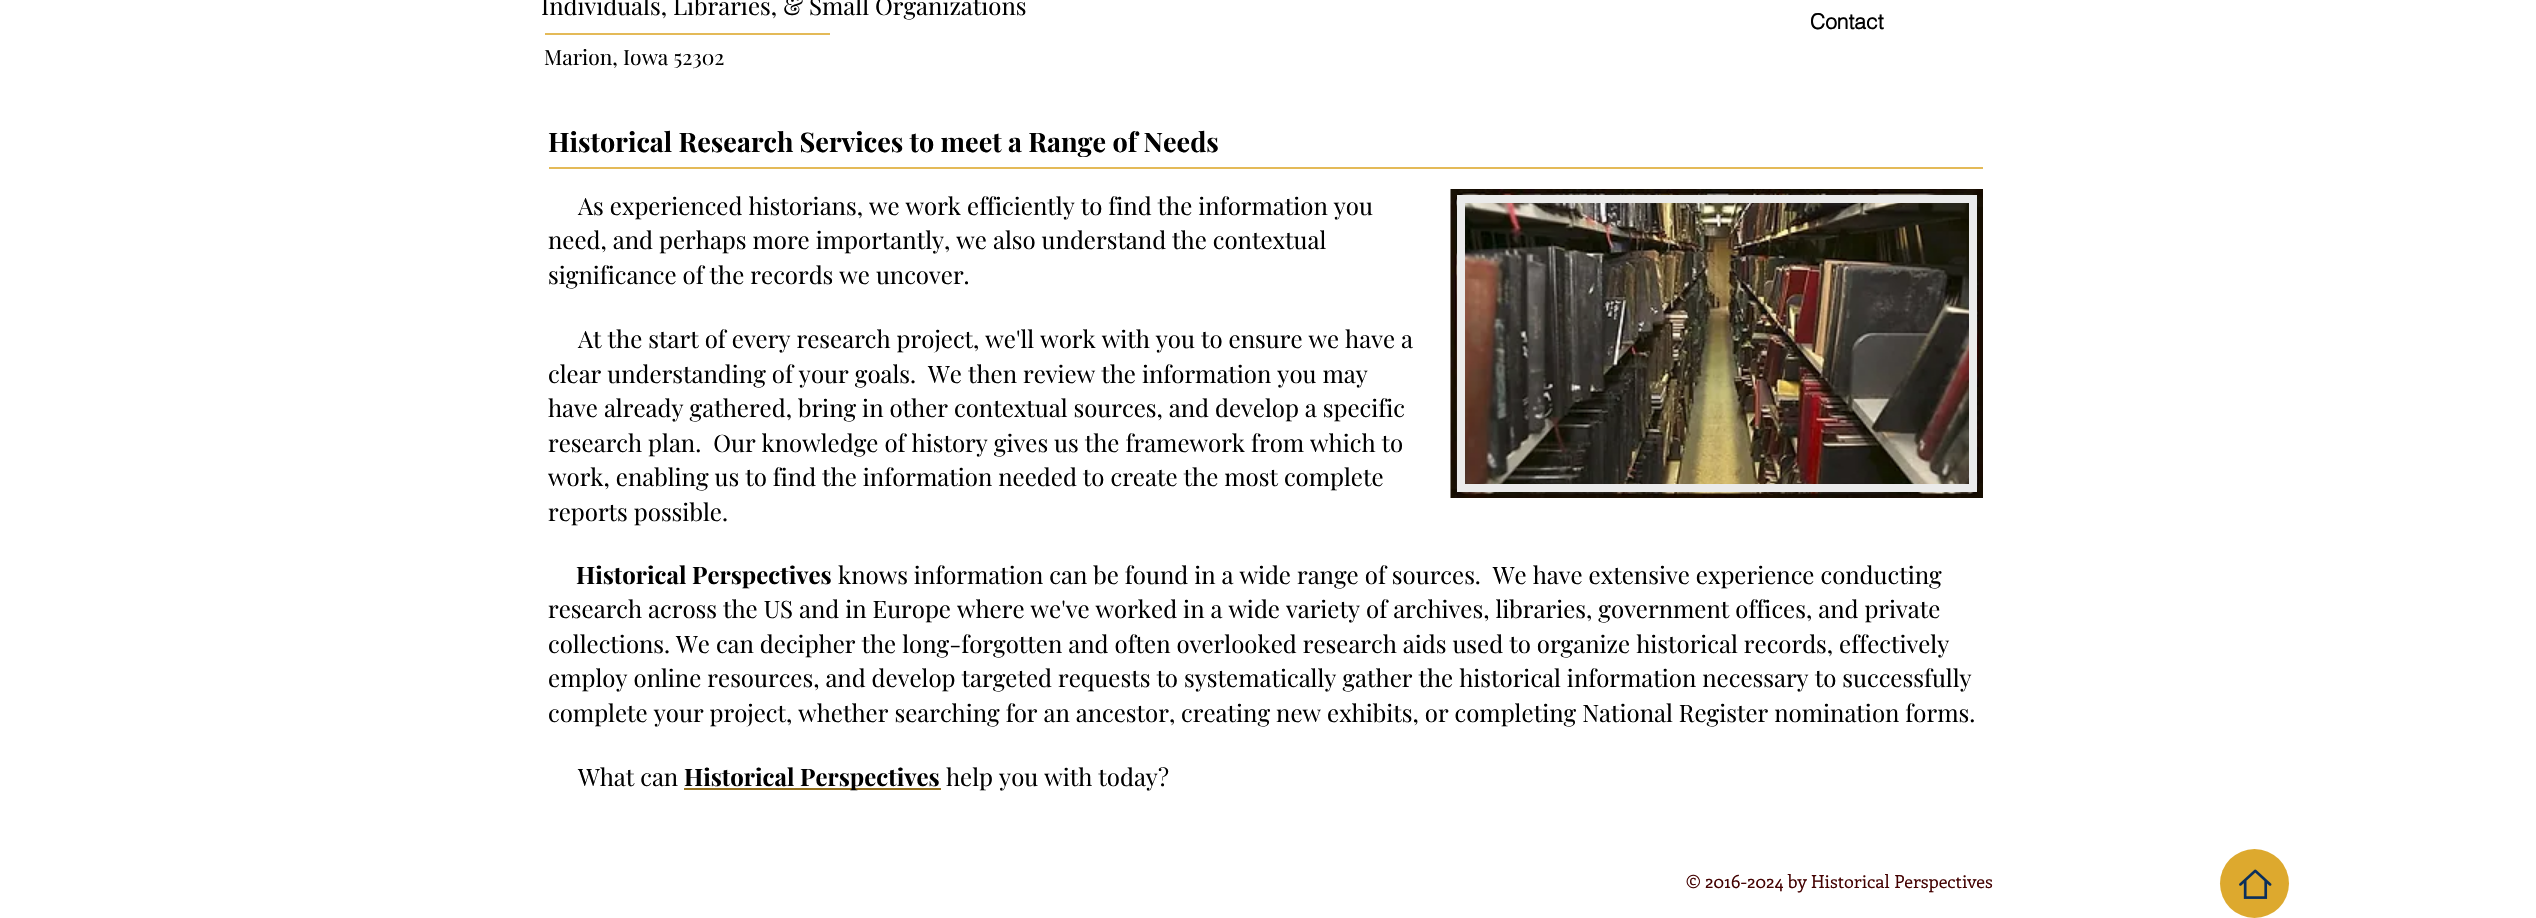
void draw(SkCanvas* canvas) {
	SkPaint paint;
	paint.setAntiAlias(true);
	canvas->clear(0xffffffff);
	SkFont f1(fontMgr->matchFamilyStyle("Playfair Display", SkFontStyle::Normal()), 24);
	f1.setSubpixel(true);
	paint.setColor(0xff000000);
	canvas->drawString("Individuals, Libraries, & Small Organizations", 541, 15, f1, paint);
	SkFont f2(fontMgr->matchFamilyStyle("helvetica", SkFontStyle::Bold()), 21);
	f2.setSubpixel(true);
	canvas->drawString("Contact", 1810, 29, f2, paint);
	paint.setColor(0xffe4ba58);
	canvas->drawRect(SkRect::MakeXYWH(545, 33, 285, 2), paint);
	SkFont f3(fontMgr->matchFamilyStyle("Playfair Display", SkFontStyle::Normal()), 21);
	f3.setSubpixel(true);
	paint.setColor(0xff000000);
	canvas->drawString("Marion, Iowa 52302", 544, 65, f3, paint);
	SkFont f4(fontMgr->matchFamilyStyle("Playfair Display", SkFontStyle::Bold()), 27);
	f4.setSubpixel(true);
	canvas->drawString("Historical Research Services to meet a Range of Needs", 548, 152, f4, paint);
	paint.setColor(0xffe4ba58);
	canvas->drawRect(SkRect::MakeXYWH(549, 167, 1434, 2), paint);
	paint.setColor(0xff000000);
	canvas->drawString("As experienced historians, we work efficiently to find the information you", 578, 215, f1, paint);
	canvas->drawString("need, and perhaps more importantly, we also understand the contextual", 548, 249, f1, paint);
	canvas->drawString("significance of the records we uncover.", 548, 284, f1, paint);
	canvas->drawString("At the start of every research project, we'll work with you to ensure we have a", 578, 348, f1, paint);
	canvas->drawString("clear understanding of your goals.  We then review the information you may", 548, 383, f1, paint);
	canvas->drawString("have already gathered, bring in other contextual sources, and develop a specific", 548, 417, f1, paint);
	canvas->drawString("research plan.  Our knowledge of history gives us the framework from which to", 548, 452, f1, paint);
	canvas->drawString("work, enabling us to find the information needed to create the most complete", 548, 486, f1, paint);
	canvas->drawString("reports possible.", 548, 521, f1, paint);
	canvas->drawImageRect(SkImages::DeferredFromEncodedData(SkData::MakeFromFileName("img1.png")), SkRect::MakeXYWH(1450, 189, 533, 309), SkSamplingOptions());
	paint.setStroke(true);
	paint.setStrokeWidth(8);
	paint.setColor(0xffebebeb);
	canvas->drawRect(SkRect::MakeXYWH(1461, 199, 512, 289), paint);
	SkFont f5(fontMgr->matchFamilyStyle("Playfair Display", SkFontStyle::Bold()), 24);
	f5.setSubpixel(true);
	paint.setStroke(false);
	paint.setColor(0xff000000);
	canvas->drawString("Historical Perspectives", 576, 584, f5, paint);
	canvas->drawString("knows information can be found in a wide range of sources.  We have extensive experience conducting", 838, 584, f1, paint);
	canvas->drawString("research across the US and in Europe where we've worked in a wide variety of archives, libraries, government offices, and private", 548, 618, f1, paint);
	canvas->drawString("collections. We can decipher the long-forgotten and often overlooked research aids used to organize historical records, effectively", 548, 653, f1, paint);
	canvas->drawString("employ online resources, and develop targeted requests to systematically gather the historical information necessary to successfully", 548, 687, f1, paint);
	canvas->drawString("complete your project, whether searching for an ancestor, creating new exhibits, or completing National Register nomination forms.", 548, 722, f1, paint);
	canvas->drawString("What can", 578, 786, f1, paint);
	paint.setColor(0xff93701f);
	canvas->drawRect(SkRect::MakeXYWH(684, 788, 257, 2), paint);
	paint.setColor(0xff000000);
	canvas->drawString("Historical Perspectives", 684, 786, f5, paint);
	canvas->drawString("help you with today?", 946, 786, f1, paint);
	SkFont f6(fontMgr->matchFamilyStyle("Enriqueta", SkFontStyle::Normal()), 18);
	f6.setSubpixel(true);
	paint.setColor(0xff440202);
	canvas->drawString("© 2016-2024 by Historical Perspectives", 1686, 888, f6, paint);
	paint.setColor(0xffdda92e);
	canvas->drawCircle(2254.5, 883.5, 34.5, paint);
	canvas->drawImageRect(SkImages::DeferredFromEncodedData(SkData::MakeFromFileName("img2.png")), SkRect::MakeXYWH(2239, 869, 33, 30), SkSamplingOptions());
}
